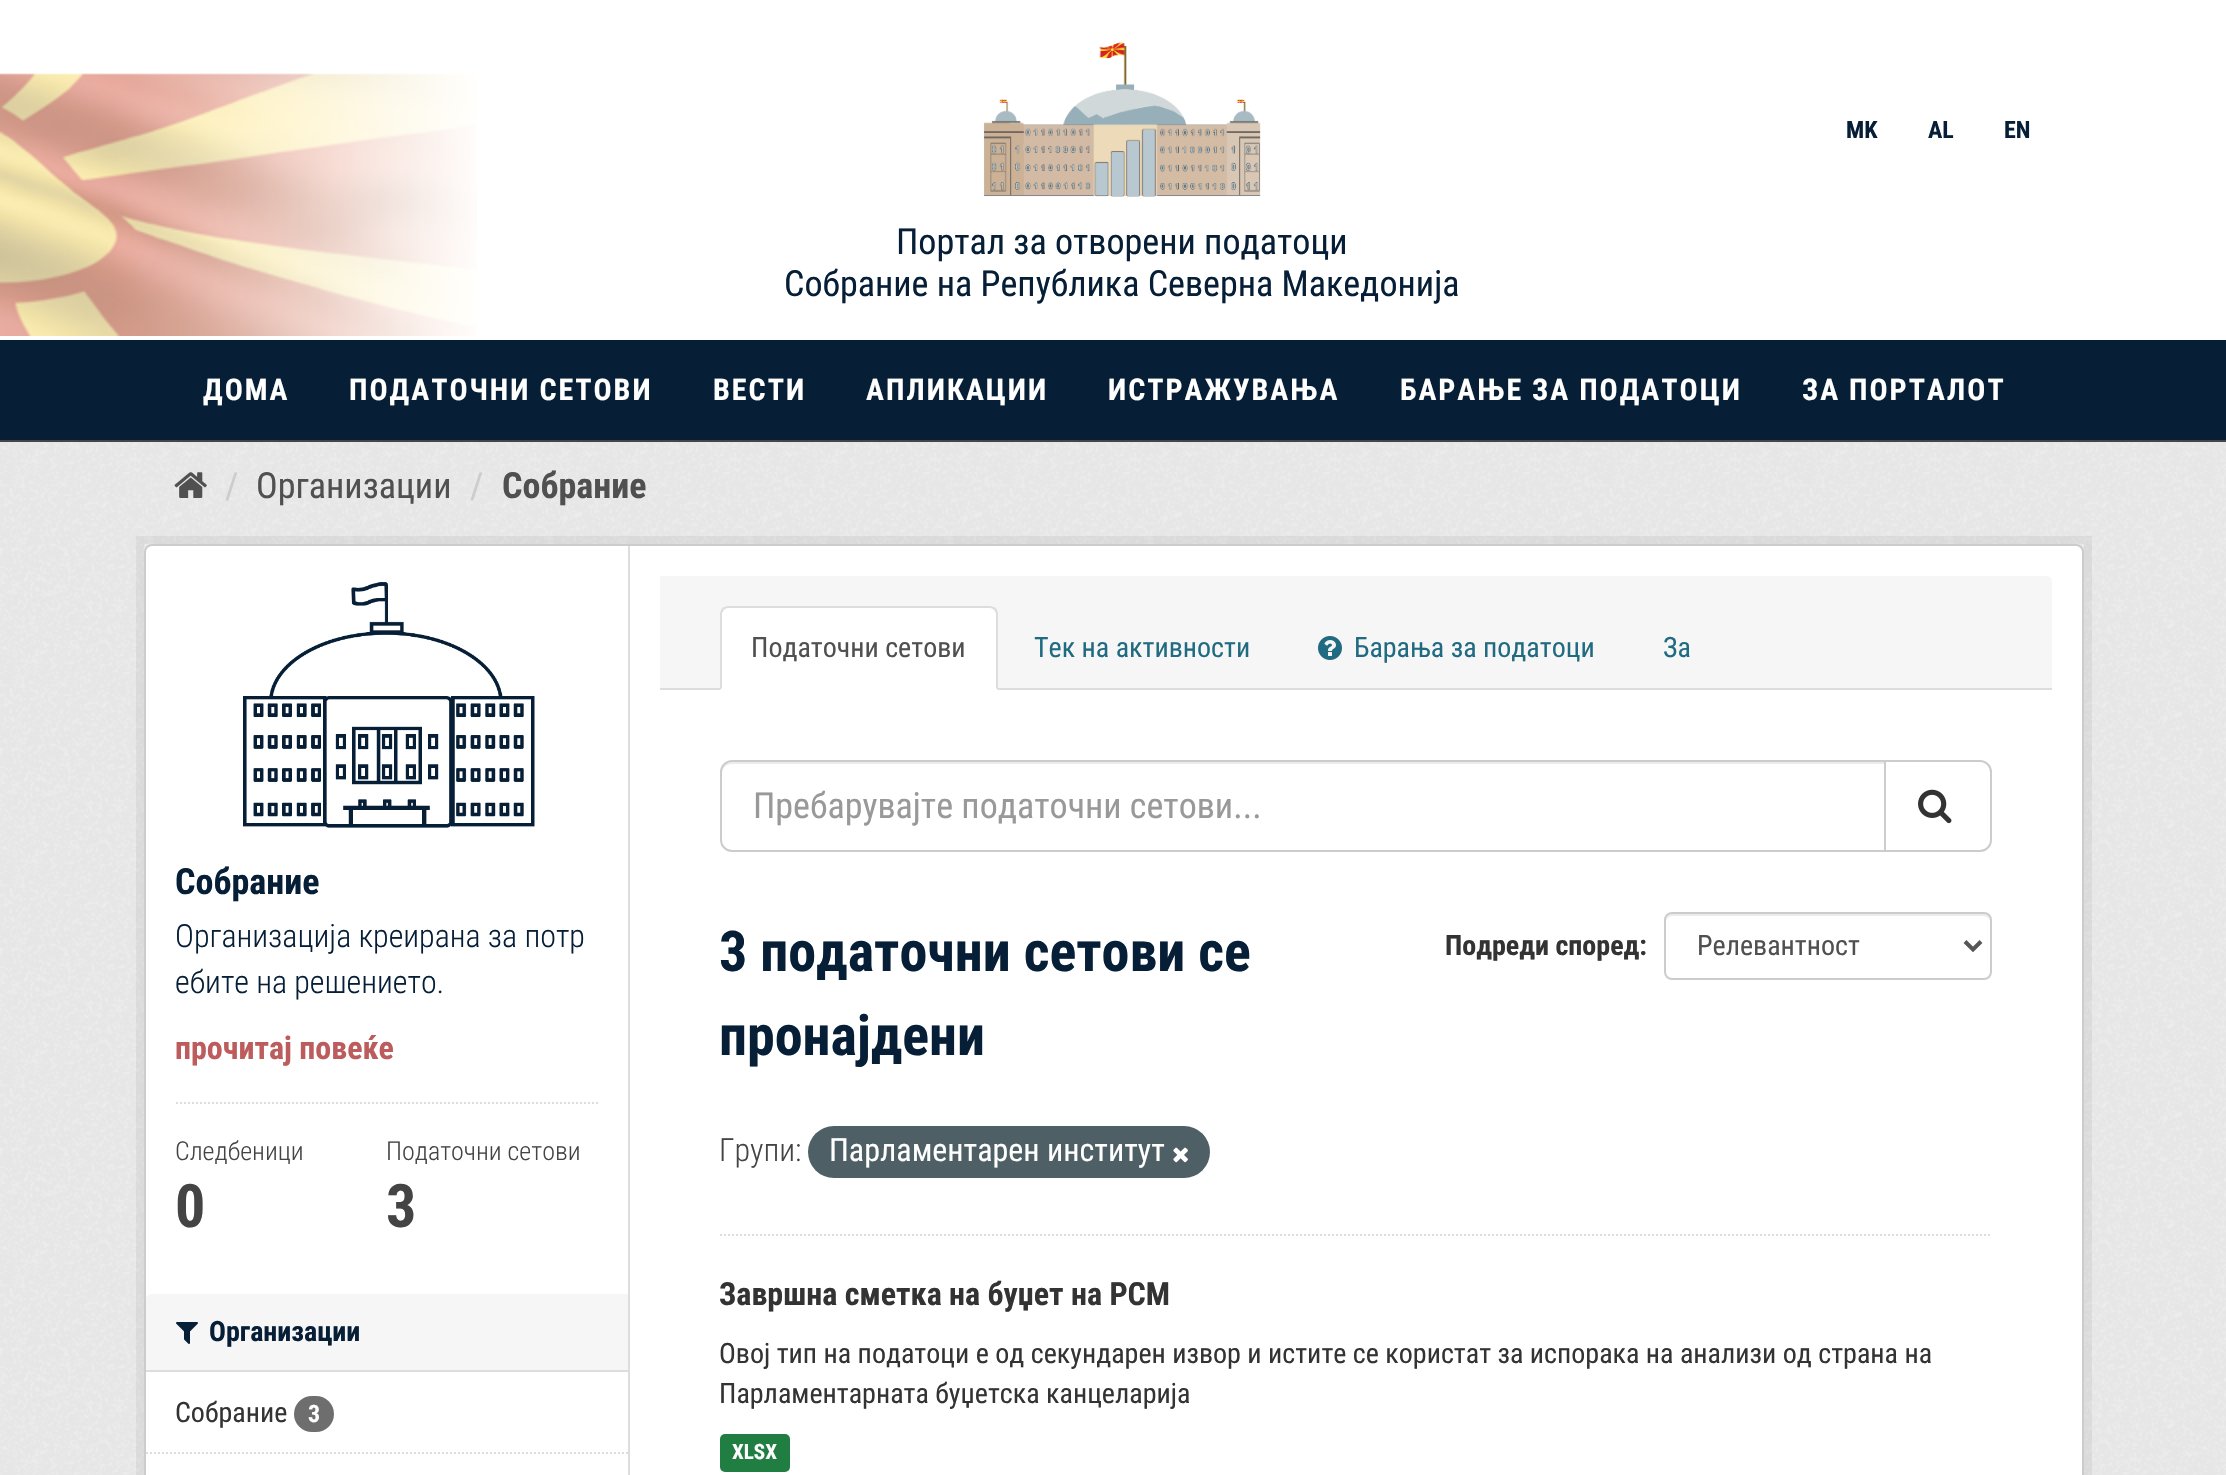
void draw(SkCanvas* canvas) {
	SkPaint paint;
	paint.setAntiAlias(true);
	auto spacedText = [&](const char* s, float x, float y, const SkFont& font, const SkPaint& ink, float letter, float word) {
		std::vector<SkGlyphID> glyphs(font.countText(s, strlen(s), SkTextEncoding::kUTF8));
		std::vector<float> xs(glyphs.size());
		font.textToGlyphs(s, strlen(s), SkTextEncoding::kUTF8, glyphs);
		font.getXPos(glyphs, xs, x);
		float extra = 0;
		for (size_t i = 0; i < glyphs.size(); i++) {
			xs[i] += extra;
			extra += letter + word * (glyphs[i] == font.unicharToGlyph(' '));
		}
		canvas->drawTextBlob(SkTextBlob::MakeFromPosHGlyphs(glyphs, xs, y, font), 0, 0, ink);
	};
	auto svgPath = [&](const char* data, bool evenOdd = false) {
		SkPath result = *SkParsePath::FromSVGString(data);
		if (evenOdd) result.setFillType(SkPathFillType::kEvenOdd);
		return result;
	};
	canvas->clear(0xffeeeeee);
	canvas->drawImageRect(SkImages::DeferredFromEncodedData(SkData::MakeFromFileName("img3.png")), SkRect::MakeXYWH(0, 440, 2226, 1035), SkSamplingOptions());
	paint.setColor(0xb3000000);
	canvas->drawRect(SkRect::MakeXYWH(0, 440, 2226, 2), paint);
	paint.setColor(0xffffffff);
	canvas->drawRect(SkRect::MakeXYWH(0, 0, 2226, 340), paint);
	SkFont f1(fontMgr->matchFamilyStyle("Roboto Condensed", SkFontStyle::Bold()), 24);
	f1.setSubpixel(true);
	paint.setColor(0xff061f37);
	canvas->drawString("MK", 1846, 138, f1, paint);
	canvas->drawString("AL", 1928, 138, f1, paint);
	canvas->drawString("EN", 2004, 138, f1, paint);
	canvas->drawImageRect(SkImages::DeferredFromEncodedData(SkData::MakeFromFileName("img1.png")), SkRect::MakeXYWH(0, 73, 477, 263), SkSamplingOptions());
	canvas->drawImageRect(SkImages::DeferredFromEncodedData(SkData::MakeFromFileName("img2.png")), SkRect::MakeXYWH(983, 42, 278, 155), SkSamplingOptions());
	SkFont f2(fontMgr->matchFamilyStyle("Roboto Condensed", SkFontStyle::Normal()), 36);
	f2.setSubpixel(true);
	canvas->drawString("Портал за отворени податоци", 896, 254, f2, paint);
	canvas->drawString("Собрание на Република Северна Македонија", 784, 296, f2, paint);
	canvas->drawRect(SkRect::MakeXYWH(0, 340, 2226, 100), paint);
	SkFont f3(fontMgr->matchFamilyStyle("Roboto Condensed", SkFontStyle::Bold()), 30);
	f3.setSubpixel(true);
	paint.setColor(0xffffffff);
	spacedText("ДОМА", 203, 400, f3, paint, 2, 0);
	spacedText("ПОДАТОЧНИ СЕТОВИ", 349, 400, f3, paint, 2, 0);
	spacedText("ВЕСТИ", 713, 400, f3, paint, 2, 0);
	spacedText("АПЛИКАЦИИ", 866, 400, f3, paint, 2, 0);
	spacedText("ИСТРАЖУВАЊА", 1108, 400, f3, paint, 2, 0);
	spacedText("БАРАЊЕ ЗА ПОДАТОЦИ", 1400, 400, f3, paint, 2, 0);
	spacedText("ЗА ПОРТАЛОТ", 1802, 400, f3, paint, 2, 0);
	canvas->drawImageRect(SkImages::DeferredFromEncodedData(SkData::MakeFromFileName("img4.png")), SkRect::MakeXYWH(174, 472, 33, 26), SkSamplingOptions());
	paint.setColor(0xffcccccc);
	canvas->drawString("/", 225, 498, f2, paint);
	paint.setColor(0xff505050);
	canvas->drawString("Организации", 256, 498, f2, paint);
	paint.setColor(0xffcccccc);
	canvas->drawString("/", 470, 498, f2, paint);
	SkFont f4(fontMgr->matchFamilyStyle("Roboto Condensed", SkFontStyle::Bold()), 36);
	f4.setSubpixel(true);
	paint.setColor(0xff505050);
	canvas->drawString("Собрание", 502, 498, f4, paint);
	paint.setStroke(true);
	paint.setStrokeWidth(8);
	paint.setColor(0x0d000000);
	canvas->drawRect(SkRect::MakeXYWH(140, 540, 1948, 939), paint);
	paint.setStroke(false);
	paint.setColor(0xffffffff);
	canvas->drawRoundRect(SkRect::MakeXYWH(145, 545, 1938, 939), 7, 7, paint);
	paint.setStroke(true);
	paint.setStrokeWidth(2);
	paint.setColor(0xffcccccc);
	canvas->drawRoundRect(SkRect::MakeXYWH(145, 545, 1938, 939), 7, 7, paint);
	canvas->drawImageRect(SkImages::DeferredFromEncodedData(SkData::MakeFromFileName("img5.png")), SkRect::MakeXYWH(243, 582, 292, 246), SkSamplingOptions());
	paint.setStroke(false);
	paint.setColor(0xff061f37);
	canvas->drawString("Собрание", 175, 894, f4, paint);
	SkFont f5(fontMgr->matchFamilyStyle("Roboto Condensed", SkFontStyle(300, SkFontStyle::kNormal_Width, SkFontStyle::kUpright_Slant)), 32);
	f5.setSubpixel(true);
	canvas->drawString("Организација креирана за потр", 175, 947, f5, paint);
	canvas->drawString("ебите на решението.", 175, 993, f5, paint);
	SkFont f6(fontMgr->matchFamilyStyle("Roboto Condensed", SkFontStyle::Bold()), 32);
	f6.setSubpixel(true);
	paint.setColor(0xffbc5c5c);
	canvas->drawString("прочитај повеќе", 175, 1059, f6, paint);
	paint.setStroke(true);
	paint.setColor(0xffdddddd);
	paint.setPathEffect(SkDashPathEffect::Make({{2, 2}}, 0));
	canvas->drawPath(svgPath("M176 1103H598"), paint);
	paint.setPathEffect(nullptr);
	SkFont f7(fontMgr->matchFamilyStyle("Roboto Condensed", SkFontStyle(300, SkFontStyle::kNormal_Width, SkFontStyle::kUpright_Slant)), 26);
	f7.setSubpixel(true);
	paint.setStroke(false);
	paint.setColor(0xff444444);
	canvas->drawString("Следбеници", 175, 1160, f7, paint);
	SkFont f8(fontMgr->matchFamilyStyle("Roboto Condensed", SkFontStyle::Bold()), 60);
	f8.setSubpixel(true);
	canvas->drawString("0", 175, 1227, f8, paint);
	canvas->drawString("Податочни сетови", 386, 1160, f7, paint);
	canvas->drawString("3", 386, 1227, f8, paint);
	paint.setColor(0xfff6f6f6);
	canvas->drawPath(svgPath("M152 1294H628V1372H146V1300C146 1296.5 148.5 1294 152 1294Z"), paint);
	paint.setColor(0xffdddddd);
	canvas->drawRect(SkRect::MakeXYWH(146, 1370, 482, 2), paint);
	canvas->drawImageRect(SkImages::DeferredFromEncodedData(SkData::MakeFromFileName("img6.png")), SkRect::MakeXYWH(176, 1322, 22, 22), SkSamplingOptions());
	SkFont f9(fontMgr->matchFamilyStyle("Roboto Condensed", SkFontStyle::Bold()), 28);
	f9.setSubpixel(true);
	paint.setColor(0xff061f37);
	canvas->drawString("Организации", 209, 1341, f9, paint);
	SkFont f10(fontMgr->matchFamilyStyle("Roboto Condensed", SkFontStyle::Normal()), 28);
	f10.setSubpixel(true);
	paint.setColor(0xff333333);
	canvas->drawString("Собрание", 175, 1422, f10, paint);
	paint.setColor(0xff6e6e6e);
	canvas->drawRoundRect(SkRect::MakeXYWH(294, 1396, 40, 36), 18, 18, paint);
	paint.setColor(0xffffffff);
	canvas->drawString("3", 308, 1422, f1, paint);
	paint.setStroke(true);
	paint.setColor(0xffdddddd);
	paint.setPathEffect(SkDashPathEffect::Make({{2, 2}}, 0));
	canvas->drawPath(svgPath("M146 1453H628"), paint);
	paint.setPathEffect(nullptr);
	paint.setStroke(false);
	canvas->drawRect(SkRect::MakeXYWH(628, 546, 2, 929), paint);
	paint.setColor(0xfff6f6f6);
	canvas->drawPath(svgPath("M660 576H2046C2049.5 576 2052 578.5 2052 582V690H660Z"), paint);
	paint.setColor(0xffdddddd);
	canvas->drawRect(SkRect::MakeXYWH(660, 688, 1392, 2), paint);
	paint.setColor(0xffffffff);
	canvas->drawPath(svgPath("M728 606H990C994.5 606 998 609.5 998 614V690H720V614C720 609.5 723.5 606 728 606Z"), paint);
	paint.setColor(0xffdddddd);
	canvas->drawPath(svgPath("M728 606C726 606 724 607 722 608L724 610C725 609 726 608 728 608H990C992 608 993 609 994 610L996 608C994 607 992 606 990 606Z"), paint);
	canvas->drawPath(svgPath("M998 690V614C998 612 997 610 996 608L994 610L996 613V688Z"), paint);
	canvas->drawPath(svgPath("M720 690L722 688V613L724 610L722 608C721 610 720 612 720 614Z"), paint);
	paint.setColor(0xff505050);
	canvas->drawString("Податочни сетови", 751, 657, f10, paint);
	paint.setColor(0xff206b82);
	canvas->drawString("Тек на активности", 1034, 657, f10, paint);
	canvas->drawImageRect(SkImages::DeferredFromEncodedData(SkData::MakeFromFileName("img7.png")), SkRect::MakeXYWH(1318, 636, 24, 24), SkSamplingOptions());
	canvas->drawString("Барања за податоци", 1354, 657, f10, paint);
	canvas->drawString("За", 1663, 657, f10, paint);
	paint.setStroke(true);
	paint.setColor(0xffdddddd);
	paint.setPathEffect(SkDashPathEffect::Make({{2, 2}}, 0));
	canvas->drawPath(svgPath("M720 1235H1992"), paint);
	paint.setPathEffect(nullptr);
	paint.setStroke(false);
	paint.setColor(0xffececec);
	canvas->drawPath(svgPath("M732 764H1884V762H732C725 762 722 768 722 774C722 768 726 764 732 764Z"), paint);
	paint.setStroke(true);
	paint.setColor(0xffcccccc);
	canvas->drawPath(svgPath("M732 761H1885V851H732C726 851 721 846 721 840V772C721 766 726 761 732 761Z"), paint);
	paint.setStroke(false);
	paint.setColor(0xff999999);
	canvas->drawString("Пребарувајте податочни сетови...", 753, 818, f2, paint);
	paint.setColor(0xffffffff);
	canvas->drawPath(svgPath("M1885 761H1980C1986 761 1991 766 1991 772V840C1991 846 1986 851 1980 851H1885Z"), paint);
	paint.setStroke(true);
	paint.setColor(0xffcccccc);
	canvas->drawPath(svgPath("M1885 761H1980C1986 761 1991 766 1991 772V840C1991 846 1986 851 1980 851H1885Z"), paint);
	canvas->drawImageRect(SkImages::DeferredFromEncodedData(SkData::MakeFromFileName("img8.png")), SkRect::MakeXYWH(1918, 789, 34, 35), SkSamplingOptions());
	SkFont f11(fontMgr->matchFamilyStyle("Roboto Condensed", SkFontStyle::Bold()), 56);
	f11.setSubpixel(true);
	paint.setStroke(false);
	paint.setColor(0xff061f37);
	canvas->drawString("3 податочни сетови се", 719, 971, f11, paint);
	canvas->drawString("пронајдени", 719, 1055, f11, paint);
	paint.setColor(0xff333333);
	canvas->drawString("Подреди според:", 1445, 955, f9, paint);
	paint.setColor(0xffececec);
	canvas->drawPath(svgPath("M1672 916H1984C1987 916 1990 919 1990 922C1990 918 1989 914 1984 914H1671C1667 915 1666 919 1666 922C1666 919 1669 916 1672 916Z"), paint);
	paint.setStroke(true);
	paint.setColor(0xffcccccc);
	canvas->drawRoundRect(SkRect::MakeXYWH(1665, 913, 326, 66), 7, 7, paint);
	paint.setStrokeWidth(4);
	paint.setColor(0xff555555);
	canvas->drawPath(svgPath("M1965 941.5L1973 949.5L1981 941.5"), paint);
	paint.setStroke(false);
	paint.setColor(0xff505050);
	canvas->drawString("Релевантност", 1697, 955, f10, paint);
	paint.setColor(0xff444444);
	canvas->drawString("Групи:", 719, 1161, f5, paint);
	paint.setColor(0xff4e5f65);
	canvas->drawRoundRect(SkRect::MakeXYWH(808, 1126, 402, 52), 26, 26, paint);
	SkFont f12(fontMgr->matchFamilyStyle("Roboto Condensed", SkFontStyle::Normal()), 32);
	f12.setSubpixel(true);
	paint.setColor(0xffffffff);
	canvas->drawString("Парламентарен институт", 829, 1161, f12, paint);
	canvas->drawImageRect(SkImages::DeferredFromEncodedData(SkData::MakeFromFileName("img9.png")), SkRect::MakeXYWH(1173, 1147, 15, 16), SkSamplingOptions());
	paint.setColor(0xff333333);
	canvas->drawString("Завршна сметка на буџет на РСМ", 719, 1305, f6, paint);
	canvas->drawString("Овој тип на податоци е од секундарен извор и истите се користат за испорака на анализи од страна на", 719, 1363, f10, paint);
	canvas->drawString("Парламентарната буџетска канцеларија", 719, 1403, f10, paint);
	paint.setColor(0xff207e42);
	canvas->drawRoundRect(SkRect::MakeXYWH(720, 1434, 70, 38), 5, 5, paint);
	SkFont f13(fontMgr->matchFamilyStyle("Roboto Condensed", SkFontStyle::Bold()), 21);
	f13.setSubpixel(true);
	paint.setColor(0xffffffff);
	canvas->drawString("XLSX", 732, 1459, f13, paint);
}
